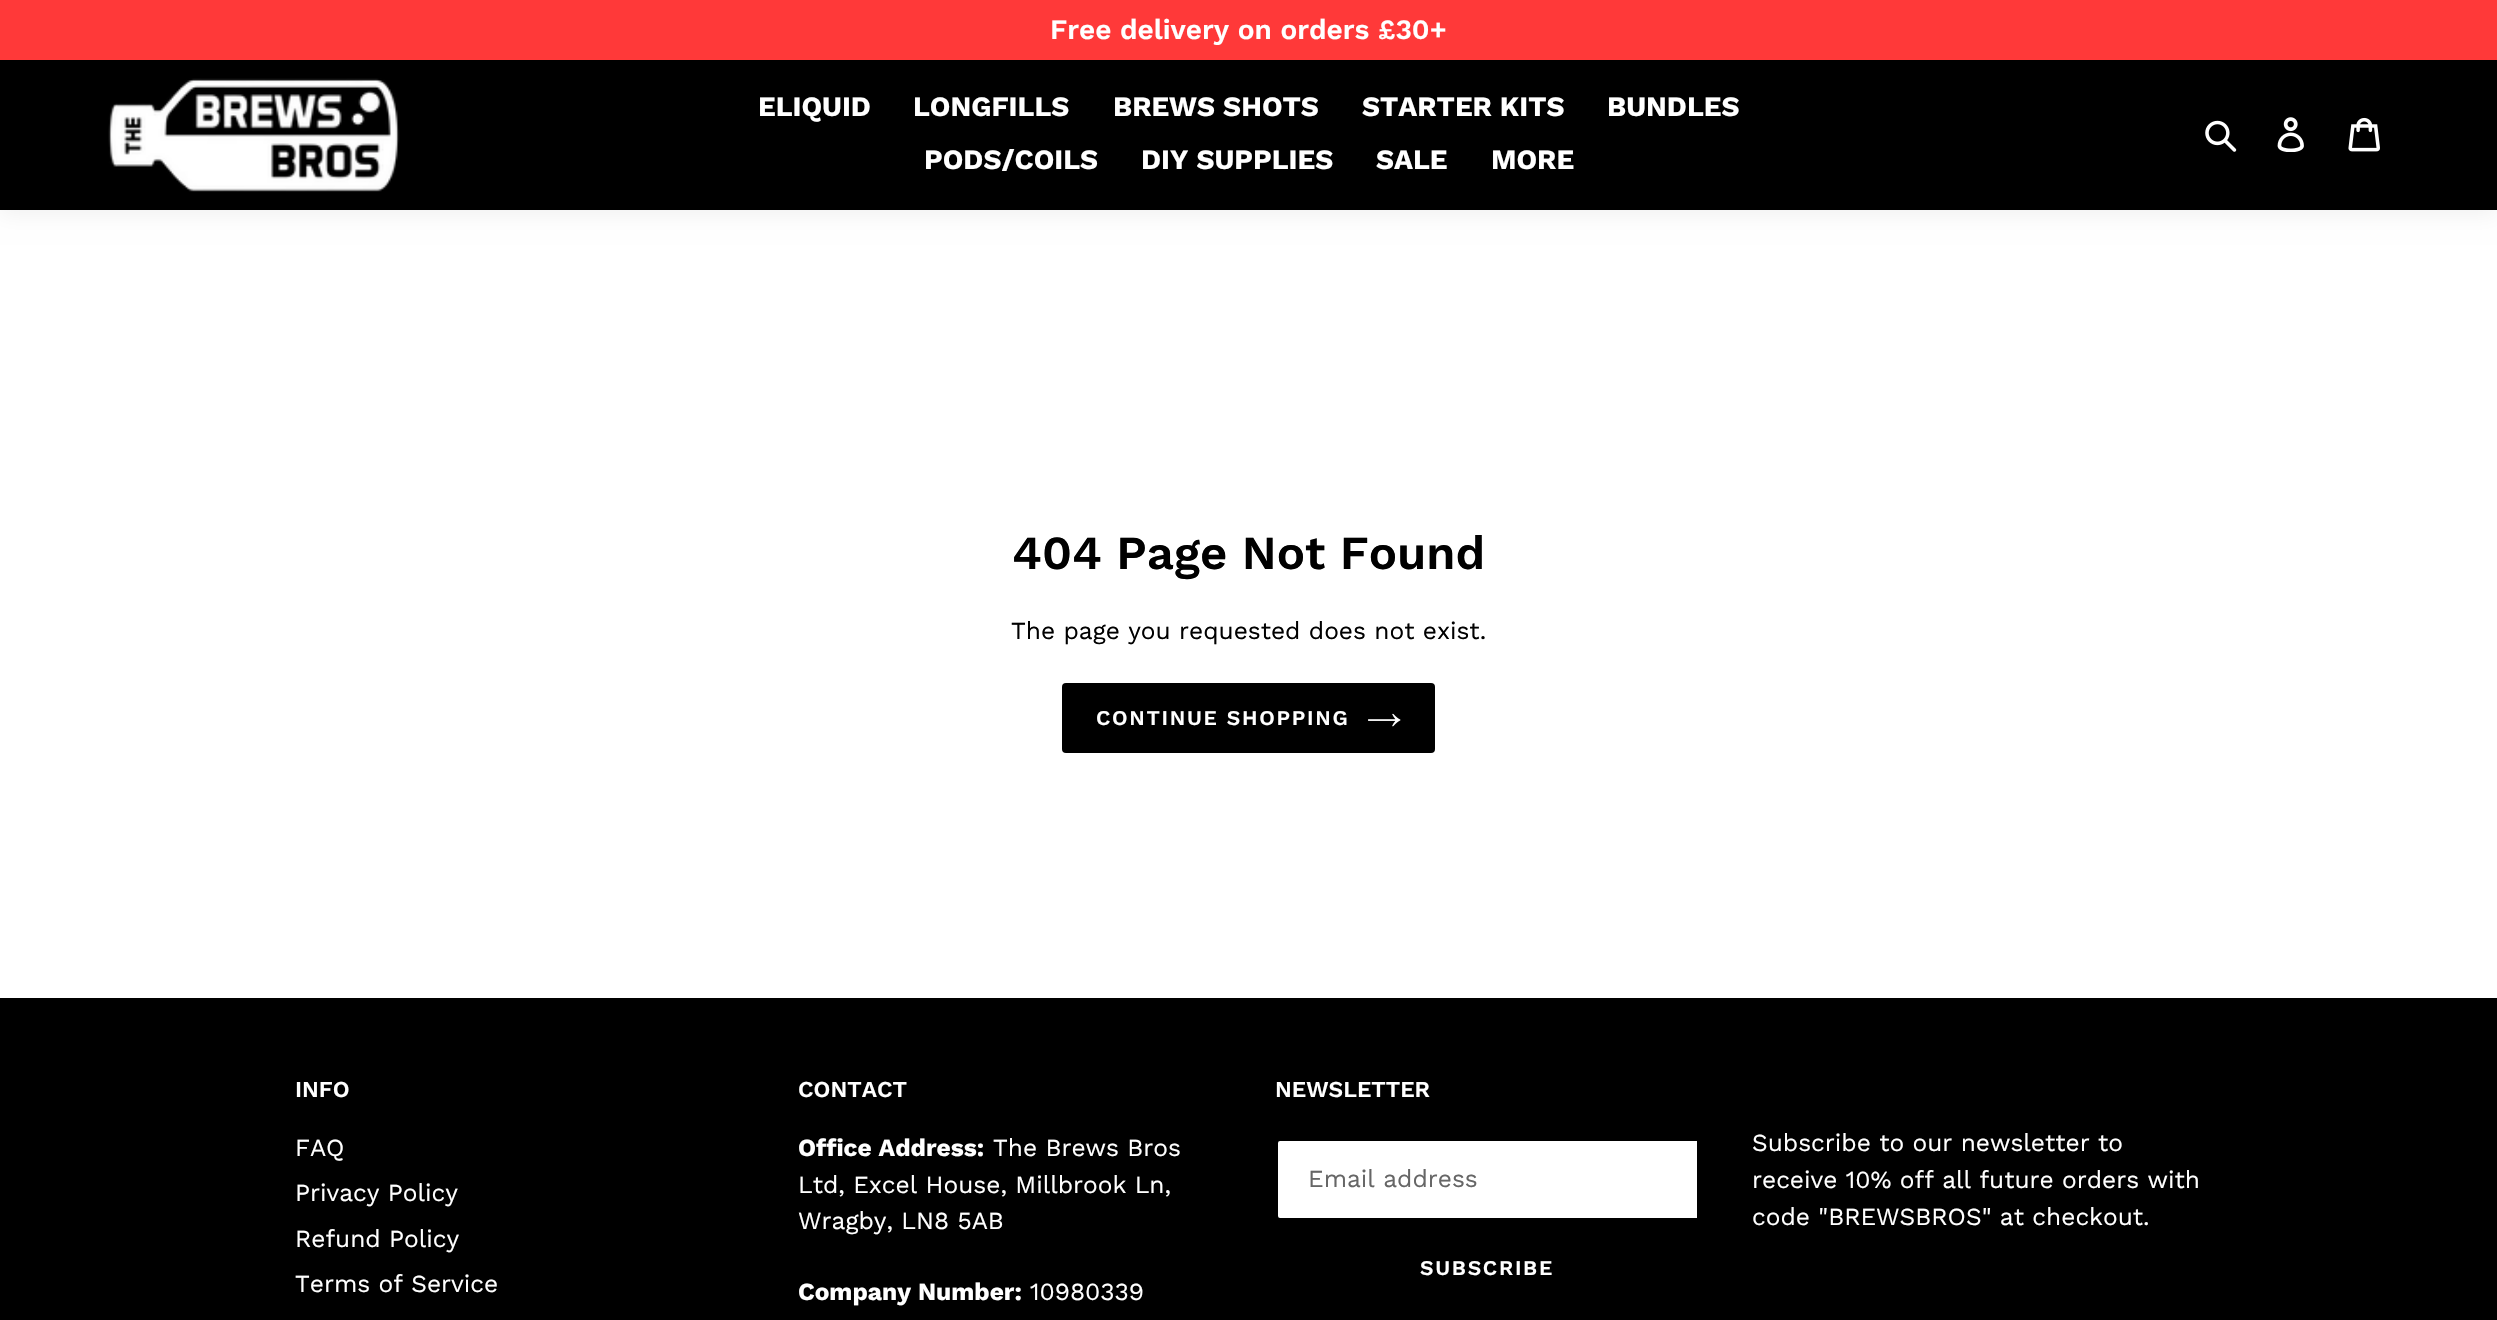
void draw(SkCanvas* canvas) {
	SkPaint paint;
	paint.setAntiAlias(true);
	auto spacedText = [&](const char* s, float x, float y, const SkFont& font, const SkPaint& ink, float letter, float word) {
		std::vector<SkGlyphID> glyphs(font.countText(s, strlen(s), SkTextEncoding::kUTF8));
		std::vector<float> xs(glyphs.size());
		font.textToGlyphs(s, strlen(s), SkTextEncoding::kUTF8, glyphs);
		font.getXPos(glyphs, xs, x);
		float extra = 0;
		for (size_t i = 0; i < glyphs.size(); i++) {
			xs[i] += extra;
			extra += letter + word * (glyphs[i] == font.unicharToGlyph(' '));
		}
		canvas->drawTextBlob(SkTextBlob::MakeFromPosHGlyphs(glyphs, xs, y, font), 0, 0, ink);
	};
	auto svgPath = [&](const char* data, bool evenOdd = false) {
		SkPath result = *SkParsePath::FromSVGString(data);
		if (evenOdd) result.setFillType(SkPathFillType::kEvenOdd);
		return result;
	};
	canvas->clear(0xffffffff);
	paint.setColor(0x0f000000);
	paint.setMaskFilter(SkMaskFilter::MakeBlur(kNormal_SkBlurStyle, 10.5));
	canvas->drawRect(SkRect::MakeXYWH(0, 4, 2497, 210), paint);
	paint.setMaskFilter(nullptr);
	paint.setColor(0xff000000);
	canvas->drawRect(SkRect::MakeXYWH(0, 60, 2497, 150), paint);
	paint.setColor(0xffff3939);
	canvas->drawRect(SkRect::MakeXYWH(0, 0, 2497, 60), paint);
	SkFont f1(fontMgr->matchFamilyStyle("Work Sans", SkFontStyle(600, SkFontStyle::kNormal_Width, SkFontStyle::kUpright_Slant)), 28);
	f1.setSubpixel(true);
	paint.setColor(0xffffffff);
	canvas->drawString("Free delivery on orders £30+", 1050, 39, f1, paint);
	canvas->drawImageRect(SkImages::DeferredFromEncodedData(SkData::MakeFromFileName("img1.png")), SkRect::MakeXYWH(108, 78, 292, 114), SkSamplingOptions());
	SkFont f2(fontMgr->matchFamilyStyle("Work Sans", SkFontStyle::Bold()), 28);
	f2.setSubpixel(true);
	canvas->drawString("ELIQUID", 758, 116, f2, paint);
	canvas->drawString("LONGFILLS", 913, 116, f2, paint);
	canvas->drawString("BREWS SHOTS", 1113, 116, f2, paint);
	canvas->drawString("STARTER KITS", 1362, 116, f2, paint);
	canvas->drawString("BUNDLES", 1607, 116, f2, paint);
	canvas->drawString("PODS/COILS", 924, 169, f2, paint);
	canvas->drawString("DIY SUPPLIES", 1141, 169, f2, paint);
	canvas->drawString("SALE", 1376, 169, f2, paint);
	canvas->drawString("MORE", 1491, 169, f2, paint);
	canvas->drawImageRect(SkImages::DeferredFromEncodedData(SkData::MakeFromFileName("img2.png")), SkRect::MakeXYWH(2205, 120, 32, 32), SkSamplingOptions());
	canvas->drawImageRect(SkImages::DeferredFromEncodedData(SkData::MakeFromFileName("img3.png")), SkRect::MakeXYWH(2277, 117, 27, 35), SkSamplingOptions());
	canvas->drawImageRect(SkImages::DeferredFromEncodedData(SkData::MakeFromFileName("img4.png")), SkRect::MakeXYWH(2348, 117, 32, 35), SkSamplingOptions());
	SkFont f3(fontMgr->matchFamilyStyle("Work Sans", SkFontStyle(600, SkFontStyle::kNormal_Width, SkFontStyle::kUpright_Slant)), 47.25);
	f3.setSubpixel(true);
	paint.setColor(0xff000000);
	canvas->drawString("404 Page Not Found", 1012, 569, f3, paint);
	SkFont f4(fontMgr->matchFamilyStyle("Work Sans", SkFontStyle::Normal()), 24.5);
	f4.setSubpixel(true);
	canvas->drawString("The page you requested does not exist.", 1011, 639, f4, paint);
	canvas->drawRoundRect(SkRect::MakeXYWH(1062, 683, 373, 70), 4, 4, paint);
	SkFont f5(fontMgr->matchFamilyStyle("Work Sans", SkFontStyle(600, SkFontStyle::kNormal_Width, SkFontStyle::kUpright_Slant)), 21);
	f5.setSubpixel(true);
	paint.setColor(0xffffffff);
	spacedText("CONTINUE SHOPPING", 1096, 725, f5, paint, 1.7, 0);
	canvas->drawImageRect(SkImages::DeferredFromEncodedData(SkData::MakeFromFileName("img5.png")), SkRect::MakeXYWH(1368, 713, 33, 14), SkSamplingOptions());
	paint.setColor(0xff000000);
	canvas->drawRect(SkRect::MakeXYWH(0, 998, 2497, 322), paint);
	SkFont f6(fontMgr->matchFamilyStyle("Work Sans", SkFontStyle(600, SkFontStyle::kNormal_Width, SkFontStyle::kUpright_Slant)), 22.75);
	f6.setSubpixel(true);
	paint.setColor(0xffffffff);
	canvas->drawString("INFO", 295, 1097, f6, paint);
	canvas->drawString("FAQ", 295, 1156, f4, paint);
	canvas->drawString("Privacy Policy", 295, 1201, f4, paint);
	canvas->drawString("Refund Policy", 295, 1247, f4, paint);
	canvas->drawString("Terms of Service", 295, 1292, f4, paint);
	canvas->drawString("CONTACT", 798, 1097, f6, paint);
	SkFont f7(fontMgr->matchFamilyStyle("Work Sans", SkFontStyle::Bold()), 24.5);
	f7.setSubpixel(true);
	canvas->drawString("Office Address:", 798, 1156, f7, paint);
	canvas->drawString("The Brews Bros", 993, 1156, f4, paint);
	canvas->drawString("Ltd, Excel House, Millbrook Ln,", 798, 1193, f4, paint);
	canvas->drawString("Wragby, LN8 5AB", 798, 1229, f4, paint);
	canvas->drawString("Company Number:", 798, 1300, f7, paint);
	canvas->drawString("10980339", 1030, 1300, f4, paint);
	canvas->drawString("NEWSLETTER", 1275, 1097, f6, paint);
	canvas->drawPath(svgPath("M1280 1140H1698V1219H1280C1278.5 1219 1277 1217.5 1277 1216V1143C1277 1141.5 1278.5 1140 1280 1140Z"), paint);
	paint.setStroke(true);
	paint.setStrokeWidth(2);
	paint.setColor(0xff000000);
	canvas->drawPath(svgPath("M1280 1140H1698V1219H1280C1278.5 1219 1277 1217.5 1277 1216V1143C1277 1141.5 1278.5 1140 1280 1140Z"), paint);
	paint.setStroke(false);
	paint.setColor(0xff666666);
	canvas->drawString("Email address", 1308, 1187, f4, paint);
	paint.setColor(0xffffffff);
	spacedText("SUBSCRIBE", 1420, 1275, f5, paint, 1.7, 0);
	canvas->drawString("Subscribe to our newsletter to", 1752, 1151, f4, paint);
	canvas->drawString("receive 10% off all future orders with", 1752, 1188, f4, paint);
	canvas->drawString("code \"BREWSBROS\" at checkout.", 1752, 1225, f4, paint);
}
